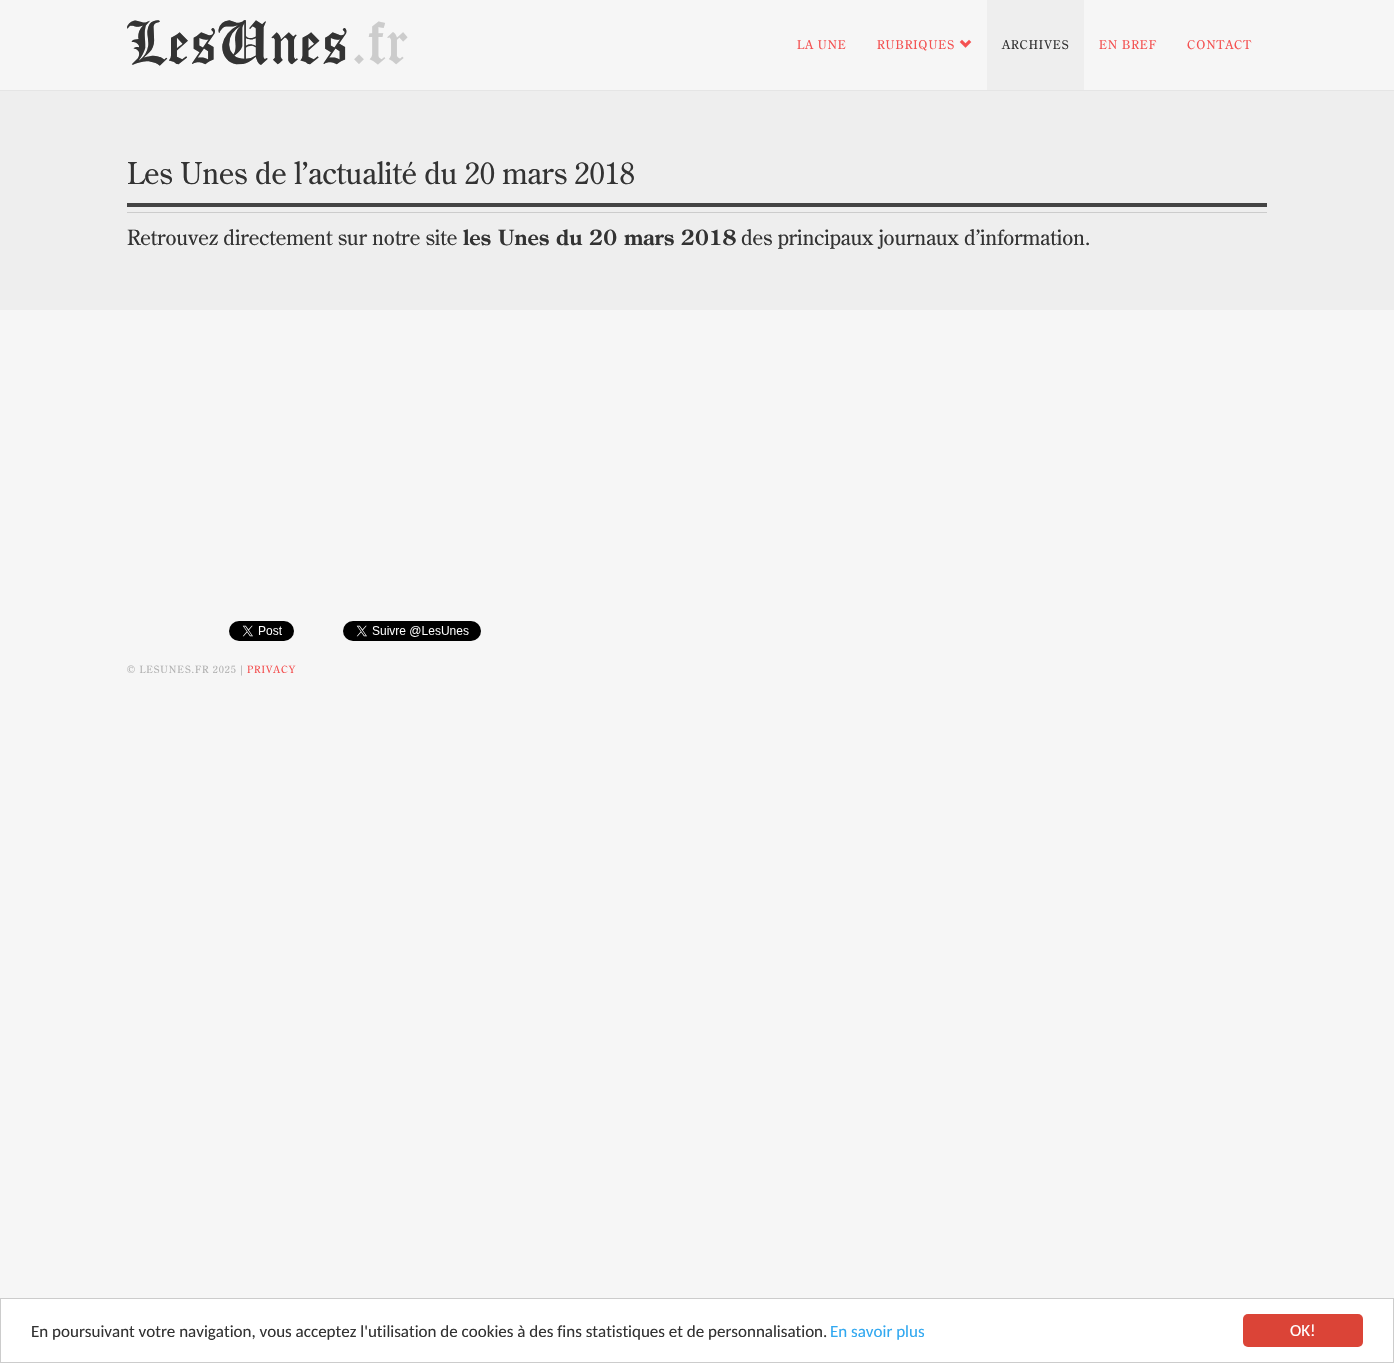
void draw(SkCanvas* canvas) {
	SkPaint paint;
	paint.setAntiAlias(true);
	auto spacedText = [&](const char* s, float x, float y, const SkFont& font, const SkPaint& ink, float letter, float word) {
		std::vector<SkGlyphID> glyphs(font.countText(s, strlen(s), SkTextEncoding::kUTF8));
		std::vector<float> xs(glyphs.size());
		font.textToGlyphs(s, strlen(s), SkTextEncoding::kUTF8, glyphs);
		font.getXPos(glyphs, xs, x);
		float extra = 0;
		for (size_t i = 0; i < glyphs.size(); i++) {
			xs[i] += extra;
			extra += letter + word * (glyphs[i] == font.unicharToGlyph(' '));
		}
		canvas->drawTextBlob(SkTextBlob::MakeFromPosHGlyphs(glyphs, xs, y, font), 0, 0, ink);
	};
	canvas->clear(0xfff6f6f6);
	paint.setColor(0xffe5e5e5);
	canvas->drawRect(SkRect::MakeXYWH(0, 90, 1394, 1), paint);
	SkFont f1(fontMgr->matchFamilyStyle("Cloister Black", SkFontStyle(300, SkFontStyle::kNormal_Width, SkFontStyle::kUpright_Slant)), 64);
	f1.setSubpixel(true);
	paint.setColor(0xff333333);
	canvas->drawString("LesUnes", 127, 64, f1, paint);
	paint.setColor(0xffcccccc);
	canvas->drawString(".fr", 350, 64, f1, paint);
	SkFont f2(fontMgr->matchFamilyStyle("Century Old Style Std", SkFontStyle::Normal()), 12);
	f2.setSubpixel(true);
	paint.setColor(0xfff45151);
	spacedText("LA UNE", 797, 49, f2, paint, 1, 0);
	spacedText("RUBRIQUES", 877, 49, f2, paint, 1, 0);
	canvas->drawImageRect(SkImages::DeferredFromEncodedData(SkData::MakeFromFileName("img1.png")), SkRect::MakeXYWH(959, 39, 13, 9), SkSamplingOptions());
	paint.setColor(0xffeeeeee);
	canvas->drawRect(SkRect::MakeXYWH(987, 0, 97, 90), paint);
	paint.setColor(0xff333333);
	spacedText("ARCHIVES", 1002, 49, f2, paint, 1, 0);
	paint.setColor(0xfff45151);
	spacedText("EN BREF", 1099, 49, f2, paint, 1, 0);
	spacedText("CONTACT", 1187, 49, f2, paint, 1, 0);
	paint.setColor(0xffeeeeee);
	canvas->drawRect(SkRect::MakeXYWH(0, 91, 1394, 219), paint);
	paint.setColor(0xff444444);
	canvas->drawRect(SkRect::MakeXYWH(127, 203, 1140, 4), paint);
	SkFont f3(fontMgr->matchFamilyStyle("Century Old Style Std", SkFontStyle::Normal()), 30);
	f3.setSubpixel(true);
	paint.setColor(0xff333333);
	canvas->drawString("Les Unes de l’actualité du 20 mars 2018", 127, 184, f3, paint);
	paint.setColor(0xffcccccc);
	canvas->drawRect(SkRect::MakeXYWH(127, 212, 1140, 1), paint);
	SkFont f4(fontMgr->matchFamilyStyle("Century Old Style Std", SkFontStyle::Normal()), 21);
	f4.setSubpixel(true);
	paint.setColor(0xff333333);
	canvas->drawString("Retrouvez directement sur notre site", 127, 245, f4, paint);
	SkFont f5(fontMgr->matchFamilyStyle("Century Old Style Std", SkFontStyle::Bold()), 21);
	f5.setSubpixel(true);
	canvas->drawString("les Unes du 20 mars 2018", 463, 245, f5, paint);
	canvas->drawString("des principaux journaux d’information.", 741, 245, f4, paint);
	canvas->drawImageRect(SkImages::DeferredFromEncodedData(SkData::MakeFromFileName("img2.png")), SkRect::MakeXYWH(229, 621, 65, 20), SkSamplingOptions());
	canvas->drawImageRect(SkImages::DeferredFromEncodedData(SkData::MakeFromFileName("img3.png")), SkRect::MakeXYWH(343, 621, 138, 20), SkSamplingOptions());
	SkFont f6(fontMgr->matchFamilyStyle("Century Old Style Std", SkFontStyle::Normal()), 10);
	f6.setSubpixel(true);
	paint.setColor(0xffb1b1b1);
	spacedText("© LESUNES.FR 2025 |", 127, 673, f6, paint, 1, 0);
	paint.setColor(0xfff45151);
	spacedText("PRIVACY", 247, 673, f6, paint, 1, 0);
	paint.setColor(0xffffffff);
	canvas->drawRect(SkRect::MakeXYWH(0.5, 1298.5, 1393, 64), paint);
	paint.setStroke(true);
	paint.setStrokeWidth(1);
	paint.setColor(0xffcccccc);
	canvas->drawRect(SkRect::MakeXYWH(0.5, 1298.5, 1393, 64), paint);
	SkFont f7(fontMgr->matchFamilyStyle("Carlito", SkFontStyle::Normal()), 17);
	f7.setSubpixel(true);
	paint.setStroke(false);
	paint.setColor(0xff333333);
	canvas->drawString("En poursuivant votre navigation, vous acceptez l'utilisation de cookies à des fins statistiques et de personnalisation.", 31, 1337, f7, paint);
	paint.setColor(0xff31a8f0);
	canvas->drawString("En savoir plus", 830, 1337, f7, paint);
	paint.setColor(0xffdb4437);
	canvas->drawRoundRect(SkRect::MakeXYWH(1243, 1314, 120, 33), 5, 5, paint);
	paint.setColor(0xffffffff);
	canvas->drawString("OK!", 1290, 1336, f7, paint);
}
